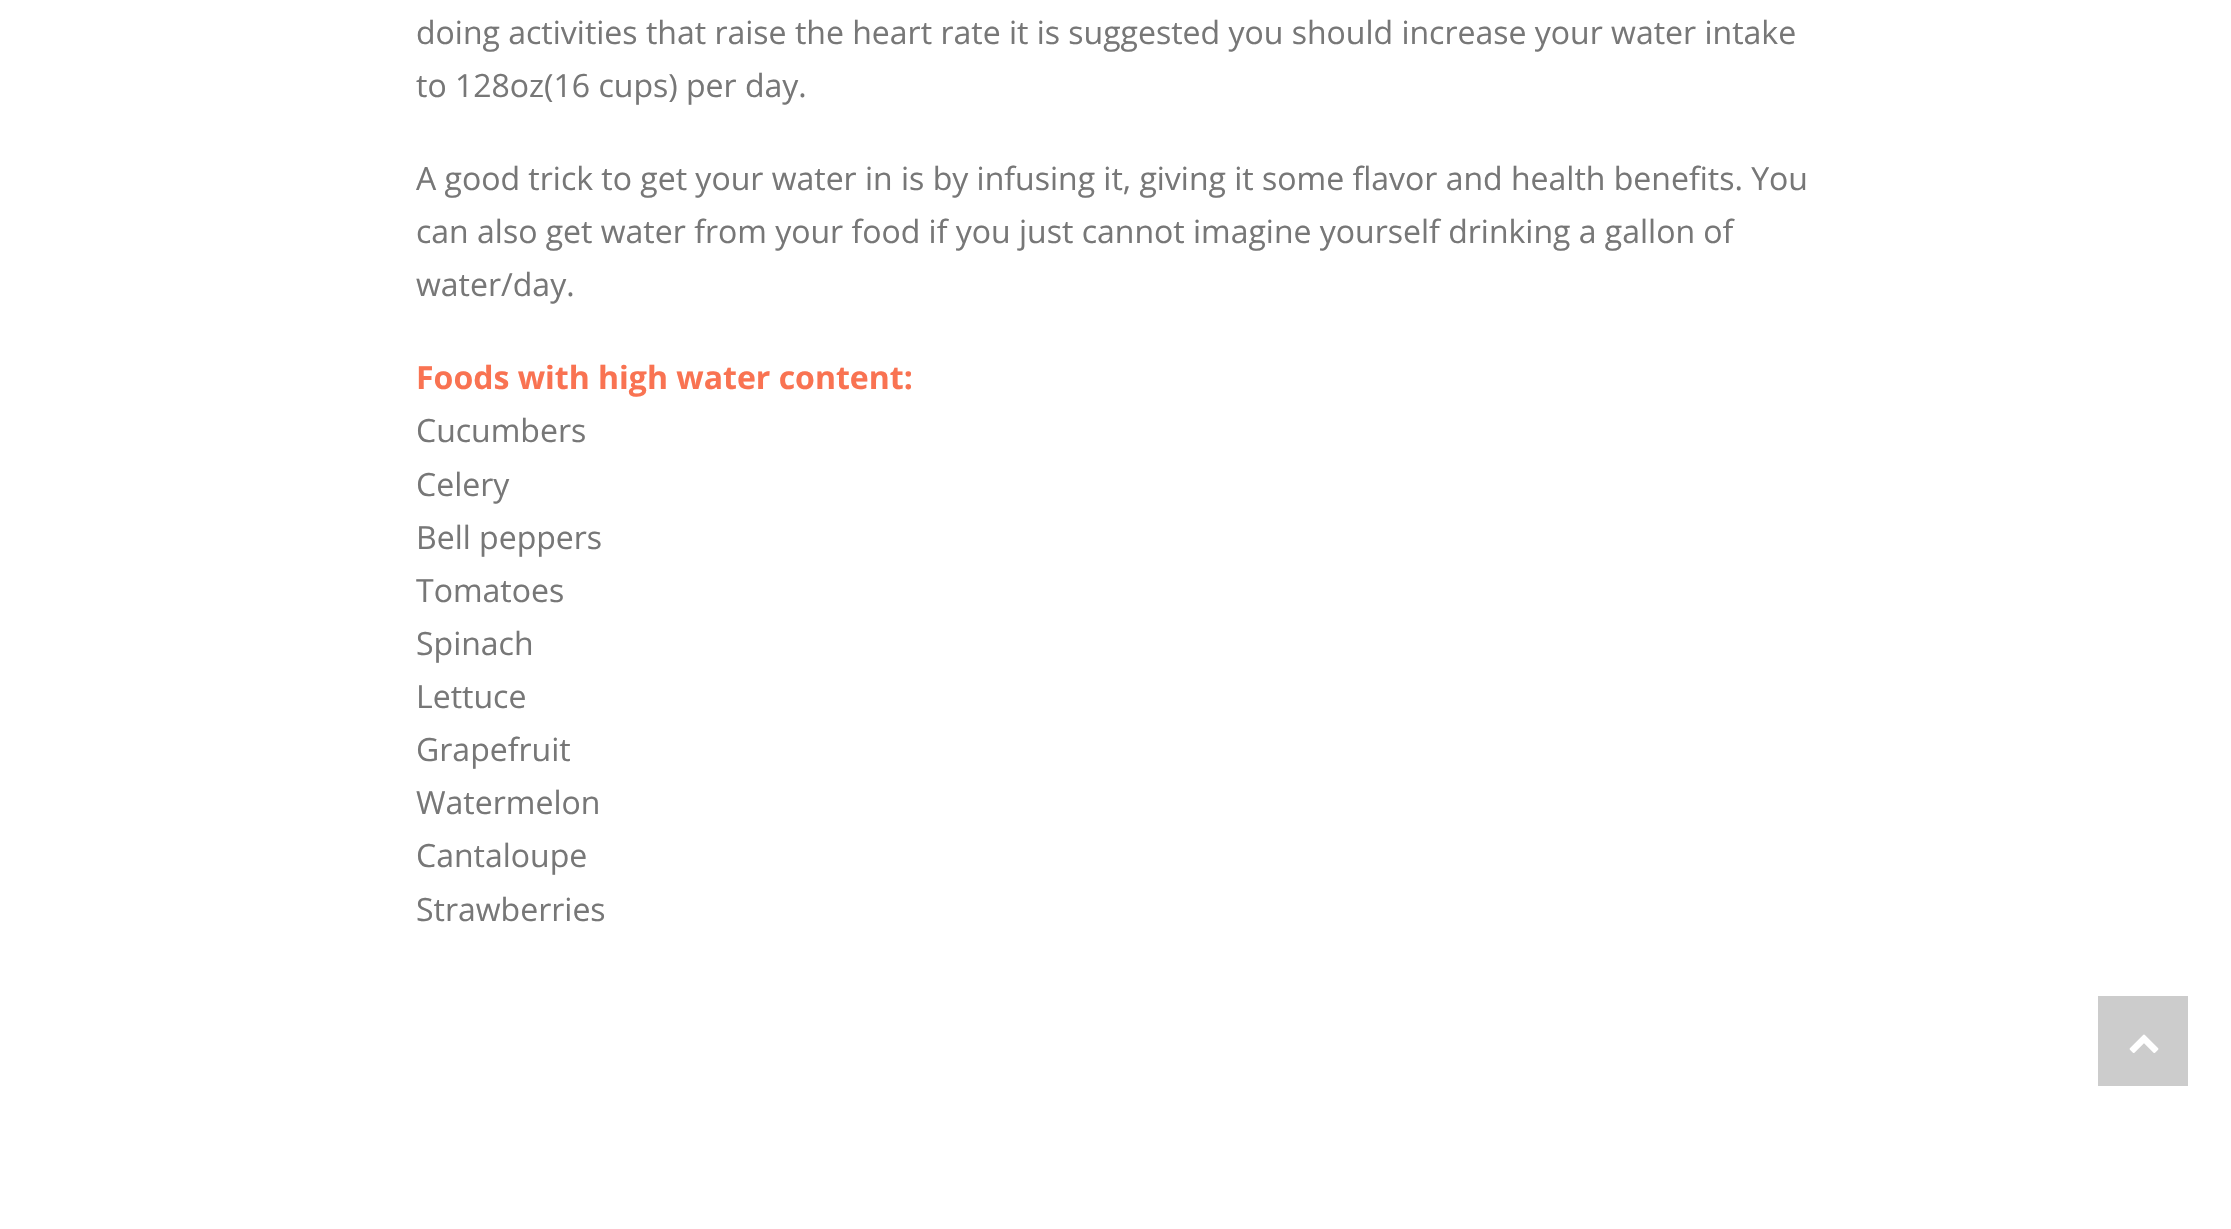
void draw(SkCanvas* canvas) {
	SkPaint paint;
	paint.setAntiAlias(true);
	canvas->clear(0xffffffff);
	SkFont f1(fontMgr->matchFamilyStyle("Open Sans", SkFontStyle::Normal()), 32);
	f1.setSubpixel(true);
	paint.setColor(0xff777777);
	canvas->drawString("doing activities that raise the heart rate it is suggested you should increase your water intake", 416, 44, f1, paint);
	canvas->drawString("to 128oz(16 cups) per day.", 416, 97, f1, paint);
	canvas->drawString("A good trick to get your water in is by infusing it, giving it some flavor and health benefits. You", 416, 190, f1, paint);
	canvas->drawString("can also get water from your food if you just cannot imagine yourself drinking a gallon of", 416, 243, f1, paint);
	canvas->drawString("water/day.", 416, 296, f1, paint);
	SkFont f2(fontMgr->matchFamilyStyle("Open Sans", SkFontStyle::Bold()), 32);
	f2.setSubpixel(true);
	paint.setColor(0xfff97352);
	canvas->drawString("Foods with high water content:", 416, 389, f2, paint);
	paint.setColor(0xff777777);
	canvas->drawString("Cucumbers", 416, 442, f1, paint);
	canvas->drawString("Celery", 416, 496, f1, paint);
	canvas->drawString("Bell peppers", 416, 549, f1, paint);
	canvas->drawString("Tomatoes", 416, 602, f1, paint);
	canvas->drawString("Spinach", 416, 655, f1, paint);
	canvas->drawString("Lettuce", 416, 708, f1, paint);
	canvas->drawString("Grapefruit", 416, 761, f1, paint);
	canvas->drawString("Watermelon", 416, 814, f1, paint);
	canvas->drawString("Cantaloupe", 416, 867, f1, paint);
	canvas->drawString("Strawberries", 416, 921, f1, paint);
	paint.setColor(0xffcccccc);
	canvas->drawRect(SkRect::MakeXYWH(2098, 996, 90, 90), paint);
	canvas->drawImageRect(SkImages::DeferredFromEncodedData(SkData::MakeFromFileName("img1.png")), SkRect::MakeXYWH(2129, 1034, 30, 19), SkSamplingOptions());
}
